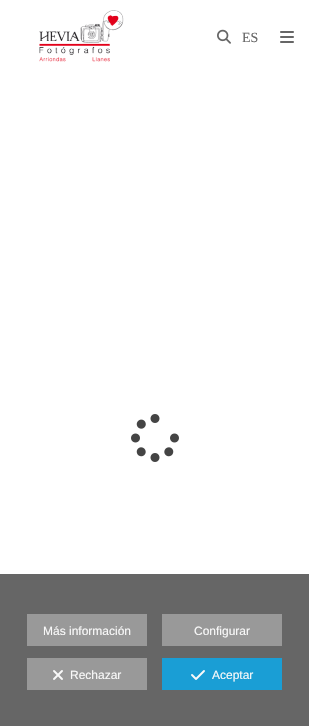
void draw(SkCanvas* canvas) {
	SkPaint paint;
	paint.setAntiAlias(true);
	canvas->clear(0xffffffff);
	canvas->drawImageRect(SkImages::DeferredFromEncodedData(SkData::MakeFromFileName("img1.png")), SkRect::MakeXYWH(39, 10, 85, 52), SkSamplingOptions());
	canvas->drawImageRect(SkImages::DeferredFromEncodedData(SkData::MakeFromFileName("img2.png")), SkRect::MakeXYWH(217, 29, 14, 15), SkSamplingOptions());
	SkFont f1(fontMgr->matchFamilyStyle("Liberation Serif", SkFontStyle::Normal()), 14);
	f1.setSubpixel(true);
	paint.setColor(0xff666666);
	canvas->drawString("ES", 242, 42, f1, paint);
	canvas->drawImageRect(SkImages::DeferredFromEncodedData(SkData::MakeFromFileName("img3.png")), SkRect::MakeXYWH(280, 31, 14, 12), SkSamplingOptions());
	canvas->drawImageRect(SkImages::DeferredFromEncodedData(SkData::MakeFromFileName("img4.png")), SkRect::MakeXYWH(131, 414, 48, 48), SkSamplingOptions());
	canvas->drawRect(SkRect::MakeXYWH(0, 574, 309, 152), paint);
	paint.setColor(0xff999999);
	canvas->drawRect(SkRect::MakeXYWH(27, 614, 120, 32), paint);
	SkFont f2(fontMgr->matchFamilyStyle("Liberation Sans", SkFontStyle::Normal()), 12);
	f2.setSubpixel(true);
	paint.setColor(0xfff9f9f9);
	canvas->drawString("Más información", 43, 635, f2, paint);
	paint.setColor(0xff999999);
	canvas->drawRect(SkRect::MakeXYWH(162, 614, 120, 32), paint);
	paint.setColor(0xfff9f9f9);
	canvas->drawString("Configurar", 194, 635, f2, paint);
	paint.setColor(0xff999999);
	canvas->drawRect(SkRect::MakeXYWH(27, 658, 120, 32), paint);
	canvas->drawImageRect(SkImages::DeferredFromEncodedData(SkData::MakeFromFileName("img5.png")), SkRect::MakeXYWH(53, 670, 10, 10), SkSamplingOptions());
	paint.setColor(0xfff9f9f9);
	canvas->drawString("Rechazar", 70, 679, f2, paint);
	paint.setColor(0xff1a9ed5);
	canvas->drawRect(SkRect::MakeXYWH(162, 658, 120, 32), paint);
	canvas->drawImageRect(SkImages::DeferredFromEncodedData(SkData::MakeFromFileName("img6.png")), SkRect::MakeXYWH(191, 670, 14, 10), SkSamplingOptions());
	paint.setColor(0xfff9f9f9);
	canvas->drawString("Aceptar", 212, 679, f2, paint);
}
